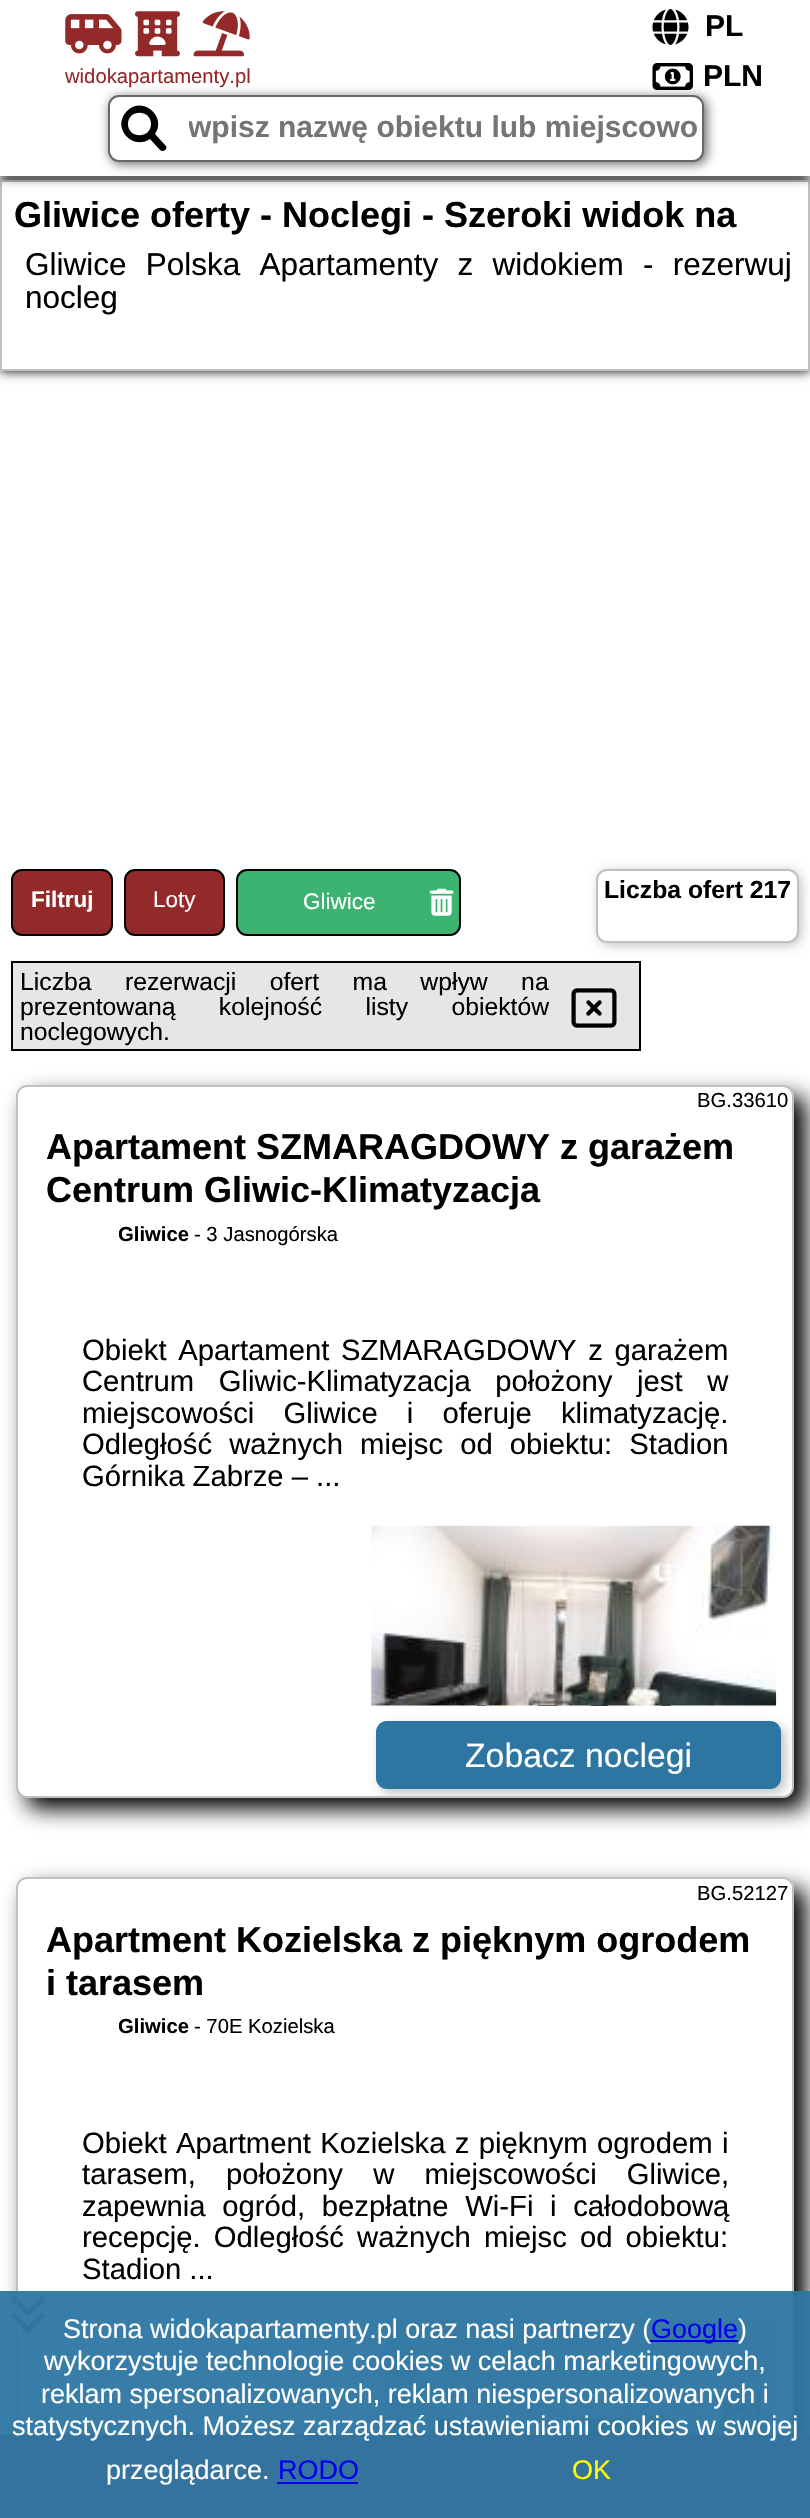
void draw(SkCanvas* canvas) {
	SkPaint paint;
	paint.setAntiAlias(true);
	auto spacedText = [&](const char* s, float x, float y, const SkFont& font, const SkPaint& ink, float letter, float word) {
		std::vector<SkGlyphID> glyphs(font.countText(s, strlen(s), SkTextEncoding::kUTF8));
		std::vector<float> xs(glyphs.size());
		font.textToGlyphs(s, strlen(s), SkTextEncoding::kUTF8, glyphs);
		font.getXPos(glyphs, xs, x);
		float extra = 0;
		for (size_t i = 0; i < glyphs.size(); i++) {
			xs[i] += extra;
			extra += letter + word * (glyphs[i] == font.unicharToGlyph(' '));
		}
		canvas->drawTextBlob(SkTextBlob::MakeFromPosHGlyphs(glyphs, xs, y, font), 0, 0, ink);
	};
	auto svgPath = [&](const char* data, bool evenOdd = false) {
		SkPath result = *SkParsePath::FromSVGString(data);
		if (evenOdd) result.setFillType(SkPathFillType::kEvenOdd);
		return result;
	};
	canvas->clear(0xffffffff);
	canvas->save();
	canvas->clipPath(svgPath("M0 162H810V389H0ZM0 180H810V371H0Z", true), true);
	paint.setColor(0xff000000);
	paint.setMaskFilter(SkMaskFilter::MakeBlur(kNormal_SkBlurStyle, 5.5));
	canvas->drawRect(SkRect::MakeXYWH(0, 180, 810, 191), paint);
	paint.setMaskFilter(nullptr);
	canvas->restore();
	paint.setStroke(true);
	paint.setStrokeWidth(2);
	paint.setColor(0xffc0c0c0);
	canvas->drawRect(SkRect::MakeXYWH(1, 181, 808, 189), paint);
	paint.setStroke(false);
	paint.setColor(0xff000000);
	paint.setMaskFilter(SkMaskFilter::MakeBlur(kNormal_SkBlurStyle, 5.5));
	canvas->drawRect(SkRect::MakeXYWH(0, 0, 810, 176), paint);
	paint.setMaskFilter(nullptr);
	paint.setColor(0xffffffff);
	canvas->drawRect(SkRect::MakeXYWH(0, 0, 810, 176), paint);
	canvas->drawImageRect(SkImages::DeferredFromEncodedData(SkData::MakeFromFileName("img1.png")), SkRect::MakeXYWH(652, 9, 37, 36), SkSamplingOptions());
	SkFont f1(fontMgr->matchFamilyStyle("Liberation Sans", SkFontStyle::Bold()), 30);
	f1.setSubpixel(true);
	paint.setColor(0xff000000);
	canvas->drawString("PL", 705, 36, f1, paint);
	canvas->drawImageRect(SkImages::DeferredFromEncodedData(SkData::MakeFromFileName("img2.png")), SkRect::MakeXYWH(65, 14, 57, 40), SkSamplingOptions());
	canvas->drawImageRect(SkImages::DeferredFromEncodedData(SkData::MakeFromFileName("img3.png")), SkRect::MakeXYWH(135, 11, 45, 46), SkSamplingOptions());
	canvas->drawImageRect(SkImages::DeferredFromEncodedData(SkData::MakeFromFileName("img4.png")), SkRect::MakeXYWH(193, 11, 57, 46), SkSamplingOptions());
	SkFont f2(fontMgr->matchFamilyStyle("Liberation Sans", SkFontStyle::Normal()), 20.25);
	f2.setSubpixel(true);
	paint.setColor(0xff942929);
	canvas->drawString("widokapartamenty.pl", 65, 83, f2, paint);
	paint.setColor(0xff676868);
	paint.setMaskFilter(SkMaskFilter::MakeBlur(kNormal_SkBlurStyle, 5.5));
	canvas->drawRoundRect(SkRect::MakeXYWH(110, 97, 597, 67), 11, 11, paint);
	paint.setMaskFilter(nullptr);
	canvas->drawImageRect(SkImages::DeferredFromEncodedData(SkData::MakeFromFileName("img5.png")), SkRect::MakeXYWH(652, 63, 41, 27), SkSamplingOptions());
	paint.setColor(0xff000000);
	canvas->drawString("PLN", 703, 86, f1, paint);
	paint.setColor(0xffffffff);
	canvas->drawRoundRect(SkRect::MakeXYWH(109, 96, 594, 65), 10, 10, paint);
	paint.setStroke(true);
	paint.setColor(0xff676868);
	canvas->drawRoundRect(SkRect::MakeXYWH(109, 96, 594, 65), 10, 10, paint);
	paint.setStroke(false);
	paint.setColor(0xff000000);
	canvas->drawPath(svgPath("M165 145L155 134C167 117 143 95 127 111C111 127 132 151 150 139L160 150C164 153 169 148 165 145ZM128 124C128 109 151 109 151 124C151 139 128 139 128 124Z"), paint);
	canvas->save();
	canvas->clipRect(SkRect::MakeXYWH(189, 110, 511, 34));
	paint.setColor(0xff757575);
	canvas->drawString("wpisz nazwę obiektu lub miejscowo", 188, 137, f1, paint);
	canvas->restore();
	SkFont f3(fontMgr->matchFamilyStyle("Liberation Sans", SkFontStyle::Bold()), 36);
	f3.setSubpixel(true);
	paint.setColor(0xff000000);
	canvas->drawString("Gliwice oferty - Noclegi - Szeroki widok na", 14, 227, f3, paint);
	SkFont f4(fontMgr->matchFamilyStyle("Liberation Sans", SkFontStyle::Normal()), 31.5);
	f4.setSubpixel(true);
	spacedText("Gliwice Polska Apartamenty z widokiem - rezerwuj", 25, 275, f4, paint, 0, 10.5);
	canvas->drawString("nocleg", 25, 308, f4, paint);
	paint.setColor(0xff942929);
	canvas->drawRoundRect(SkRect::MakeXYWH(12, 870, 100, 65), 10, 10, paint);
	paint.setStroke(true);
	paint.setColor(0xff000000);
	canvas->drawRoundRect(SkRect::MakeXYWH(12, 870, 100, 65), 10, 10, paint);
	SkFont f5(fontMgr->matchFamilyStyle("Liberation Sans", SkFontStyle::Bold()), 22.5);
	f5.setSubpixel(true);
	paint.setStroke(false);
	paint.setColor(0xffffffff);
	canvas->drawString("Filtruj", 31, 907, f5, paint);
	paint.setColor(0xff942929);
	canvas->drawRoundRect(SkRect::MakeXYWH(125, 870, 99, 65), 10, 10, paint);
	paint.setStroke(true);
	paint.setColor(0xff000000);
	canvas->drawRoundRect(SkRect::MakeXYWH(125, 870, 99, 65), 10, 10, paint);
	SkFont f6(fontMgr->matchFamilyStyle("Liberation Sans", SkFontStyle::Normal()), 22.5);
	f6.setSubpixel(true);
	paint.setStroke(false);
	paint.setColor(0xffffffff);
	canvas->drawString("Loty", 153, 907, f6, paint);
	paint.setColor(0xff3cb371);
	canvas->drawRoundRect(SkRect::MakeXYWH(237, 870, 223, 65), 10, 10, paint);
	paint.setStroke(true);
	paint.setColor(0xff000000);
	canvas->drawRoundRect(SkRect::MakeXYWH(237, 870, 223, 65), 10, 10, paint);
	paint.setStroke(false);
	paint.setColor(0xffffffff);
	canvas->drawString("Gliwice", 303, 909, f6, paint);
	canvas->drawImageRect(SkImages::DeferredFromEncodedData(SkData::MakeFromFileName("img6.png")), SkRect::MakeXYWH(429, 888, 25, 28), SkSamplingOptions());
	paint.setColor(0xffc0c0c0);
	paint.setMaskFilter(SkMaskFilter::MakeBlur(kNormal_SkBlurStyle, 5.5));
	canvas->drawRoundRect(SkRect::MakeXYWH(599, 871, 202, 74), 11, 11, paint);
	paint.setMaskFilter(nullptr);
	paint.setColor(0xffffffff);
	canvas->drawRoundRect(SkRect::MakeXYWH(597, 870, 201, 72), 10, 10, paint);
	paint.setStroke(true);
	paint.setColor(0xffc0c0c0);
	canvas->drawRoundRect(SkRect::MakeXYWH(597, 870, 201, 72), 10, 10, paint);
	SkFont f7(fontMgr->matchFamilyStyle("Liberation Sans", SkFontStyle::Bold()), 24.75);
	f7.setSubpixel(true);
	paint.setStroke(false);
	paint.setColor(0xff000000);
	canvas->drawString("Liczba ofert 217", 604, 898, f7, paint);
	paint.setColor(0xffe6e6e6);
	canvas->drawRect(SkRect::MakeXYWH(12, 962, 628, 88), paint);
	paint.setStroke(true);
	paint.setColor(0xff000000);
	canvas->drawRect(SkRect::MakeXYWH(12, 962, 628, 88), paint);
	SkFont f8(fontMgr->matchFamilyStyle("Liberation Sans", SkFontStyle::Normal()), 24.75);
	f8.setSubpixel(true);
	paint.setStroke(false);
	spacedText("Liczba rezerwacji ofert ma wpływ na", 20, 990, f8, paint, 0, 26.5);
	spacedText("prezentowaną kolejność listy obiektów", 20, 1015, f8, paint, 0, 36.5);
	canvas->drawImageRect(SkImages::DeferredFromEncodedData(SkData::MakeFromFileName("img7.png")), SkRect::MakeXYWH(571, 988, 46, 40), SkSamplingOptions());
	canvas->drawString("noclegowych.", 20, 1040, f8, paint);
	paint.setMaskFilter(SkMaskFilter::MakeBlur(kNormal_SkBlurStyle, 11));
	canvas->drawRoundRect(SkRect::MakeXYWH(27, 1096, 779, 713), 11, 11, paint);
	paint.setMaskFilter(nullptr);
	paint.setColor(0xffffffff);
	canvas->drawRoundRect(SkRect::MakeXYWH(17, 1086, 776, 711), 10, 10, paint);
	paint.setStroke(true);
	paint.setColor(0xffc0c0c0);
	canvas->drawRoundRect(SkRect::MakeXYWH(17, 1086, 776, 711), 10, 10, paint);
	paint.setStroke(false);
	paint.setColor(0xff000000);
	canvas->drawString("BG.33610", 697, 1107, f2, paint);
	canvas->drawString("Apartament SZMARAGDOWY z garażem", 46, 1159, f3, paint);
	canvas->drawString("Centrum Gliwic-Klimatyzacja", 46, 1202, f3, paint);
	SkFont f9(fontMgr->matchFamilyStyle("Liberation Sans", SkFontStyle::Bold()), 20.25);
	f9.setSubpixel(true);
	canvas->drawString("Gliwice", 118, 1241, f9, paint);
	canvas->drawString("- 3 Jasnogórska", 194, 1241, f2, paint);
	SkFont f10(fontMgr->matchFamilyStyle("Liberation Sans", SkFontStyle::Normal()), 29.25);
	f10.setSubpixel(true);
	spacedText("Obiekt Apartament SZMARAGDOWY z garażem", 82, 1360, f10, paint, 0, 3.5);
	spacedText("Centrum Gliwic-Klimatyzacja położony jest w", 82, 1391, f10, paint, 0, 16.5);
	spacedText("miejscowości Gliwice i oferuje klimatyzację.", 82, 1423, f10, paint, 0, 21);
	spacedText("Odległość ważnych miejsc od obiektu: Stadion", 82, 1454, f10, paint, 0, 9);
	canvas->drawString("Górnika Zabrze – ...", 82, 1486, f10, paint);
	canvas->drawImageRect(SkImages::DeferredFromEncodedData(SkData::MakeFromFileName("img8.png")), SkRect::MakeXYWH(477, 1705, 194, 1), SkSamplingOptions());
	canvas->drawImageRect(SkImages::DeferredFromEncodedData(SkData::MakeFromFileName("img9.png")), SkRect::MakeXYWH(371, 1525, 406, 181), SkSamplingOptions());
	canvas->save();
	canvas->clipPath(svgPath("M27 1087H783C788 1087 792 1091 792 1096V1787C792 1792 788 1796 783 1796H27C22 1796 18 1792 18 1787V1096C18 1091 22 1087 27 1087Z"), true);
	paint.setColor(0xffc0c0c0);
	paint.setMaskFilter(SkMaskFilter::MakeBlur(kNormal_SkBlurStyle, 5.5));
	canvas->drawRoundRect(SkRect::MakeXYWH(380, 1726, 405, 67), 11, 11, paint);
	paint.setMaskFilter(nullptr);
	canvas->restore();
	paint.setColor(0xff2d76a2);
	canvas->drawRoundRect(SkRect::MakeXYWH(376, 1721, 405, 68), 11, 11, paint);
	SkFont f11(fontMgr->matchFamilyStyle("Liberation Sans", SkFontStyle::Normal()), 33.75);
	f11.setSubpixel(true);
	paint.setColor(0xffffffff);
	canvas->drawString("Zobacz noclegi", 465, 1767, f11, paint);
	paint.setColor(0xff000000);
	paint.setMaskFilter(SkMaskFilter::MakeBlur(kNormal_SkBlurStyle, 11));
	canvas->drawRoundRect(SkRect::MakeXYWH(27, 1888, 779, 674), 11, 11, paint);
	paint.setMaskFilter(nullptr);
	paint.setColor(0xffffffff);
	canvas->drawPath(svgPath("M27 1877H783C789 1877 794 1882 794 1888V2435H16V1888C16 1882 21 1877 27 1877Z"), paint);
	paint.setStroke(true);
	paint.setColor(0xffc0c0c0);
	canvas->drawRoundRect(SkRect::MakeXYWH(17, 1878, 776, 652), 10, 10, paint);
	paint.setStroke(false);
	paint.setColor(0xff000000);
	canvas->drawString("BG.52127", 697, 1900, f2, paint);
	canvas->drawString("Apartment Kozielska z pięknym ogrodem", 46, 1952, f3, paint);
	canvas->drawString("i tarasem", 46, 1995, f3, paint);
	canvas->drawString("Gliwice", 118, 2033, f9, paint);
	canvas->drawString("- 70E Kozielska", 194, 2033, f2, paint);
	spacedText("Obiekt Apartment Kozielska z pięknym ogrodem i", 82, 2153, f10, paint, 0, 1.25);
	spacedText("tarasem, położony w miejscowości Gliwice,", 82, 2184, f10, paint, 0, 22);
	spacedText("zapewnia ogród, bezpłatne Wi-Fi i całodobową", 82, 2216, f10, paint, 0, 8.5);
	spacedText("recepcję. Odległość ważnych miejsc od obiektu:", 82, 2247, f10, paint, 0, 5);
	canvas->drawString("Stadion ...", 82, 2279, f10, paint);
	canvas->drawImageRect(SkImages::DeferredFromEncodedData(SkData::MakeFromFileName("img10.png")), SkRect::MakeXYWH(477, 2434, 194, 1), SkSamplingOptions());
	canvas->drawImageRect(SkImages::DeferredFromEncodedData(SkData::MakeFromFileName("img11.png")), SkRect::MakeXYWH(371, 2319, 405, 116), SkSamplingOptions());
	canvas->drawImageRect(SkImages::DeferredFromEncodedData(SkData::MakeFromFileName("img12.png")), SkRect::MakeXYWH(11, 2296, 34, 37), SkSamplingOptions());
	paint.setColor(0xff942929);
	paint.setMaskFilter(SkMaskFilter::MakeBlur(kNormal_SkBlurStyle, 2));
	canvas->drawRect(SkRect::MakeXYWH(0, 2435, 810, 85), paint);
	paint.setMaskFilter(nullptr);
	canvas->drawRect(SkRect::MakeXYWH(0, 2435, 810, 83), paint);
	paint.setColor(0xf22d76a2);
	canvas->drawRect(SkRect::MakeXYWH(0, 2291, 810, 227), paint);
	SkFont f12(fontMgr->matchFamilyStyle("Liberation Sans", SkFontStyle::Normal()), 27);
	f12.setSubpixel(true);
	paint.setColor(0xffffffff);
	canvas->drawString("Strona widokapartamenty.pl oraz nasi partnerzy (", 63, 2338, f12, paint);
	paint.setColor(0xff0000ee);
	canvas->drawRect(SkRect::MakeXYWH(650, 2340, 88, 2), paint);
	canvas->drawString("Google", 651, 2338, f12, paint);
	paint.setColor(0xffffffff);
	canvas->drawString(")", 738, 2338, f12, paint);
	canvas->drawString("wykorzystuje technologie cookies w celach marketingowych,", 44, 2370, f12, paint);
	canvas->drawString("reklam spersonalizowanych, reklam niespersonalizowanych i", 41, 2403, f12, paint);
	canvas->drawString("statystycznych. Możesz zarządzać ustawieniami cookies w swojej", 12, 2435, f12, paint);
	canvas->drawString("przeglądarce.", 106, 2479, f12, paint);
	paint.setColor(0xff0000ee);
	canvas->drawString("RODO", 278, 2479, f12, paint);
	canvas->drawRect(SkRect::MakeXYWH(277, 2482, 81, 2), paint);
	paint.setColor(0xffffff00);
	canvas->drawString("OK", 572, 2479, f12, paint);
}
